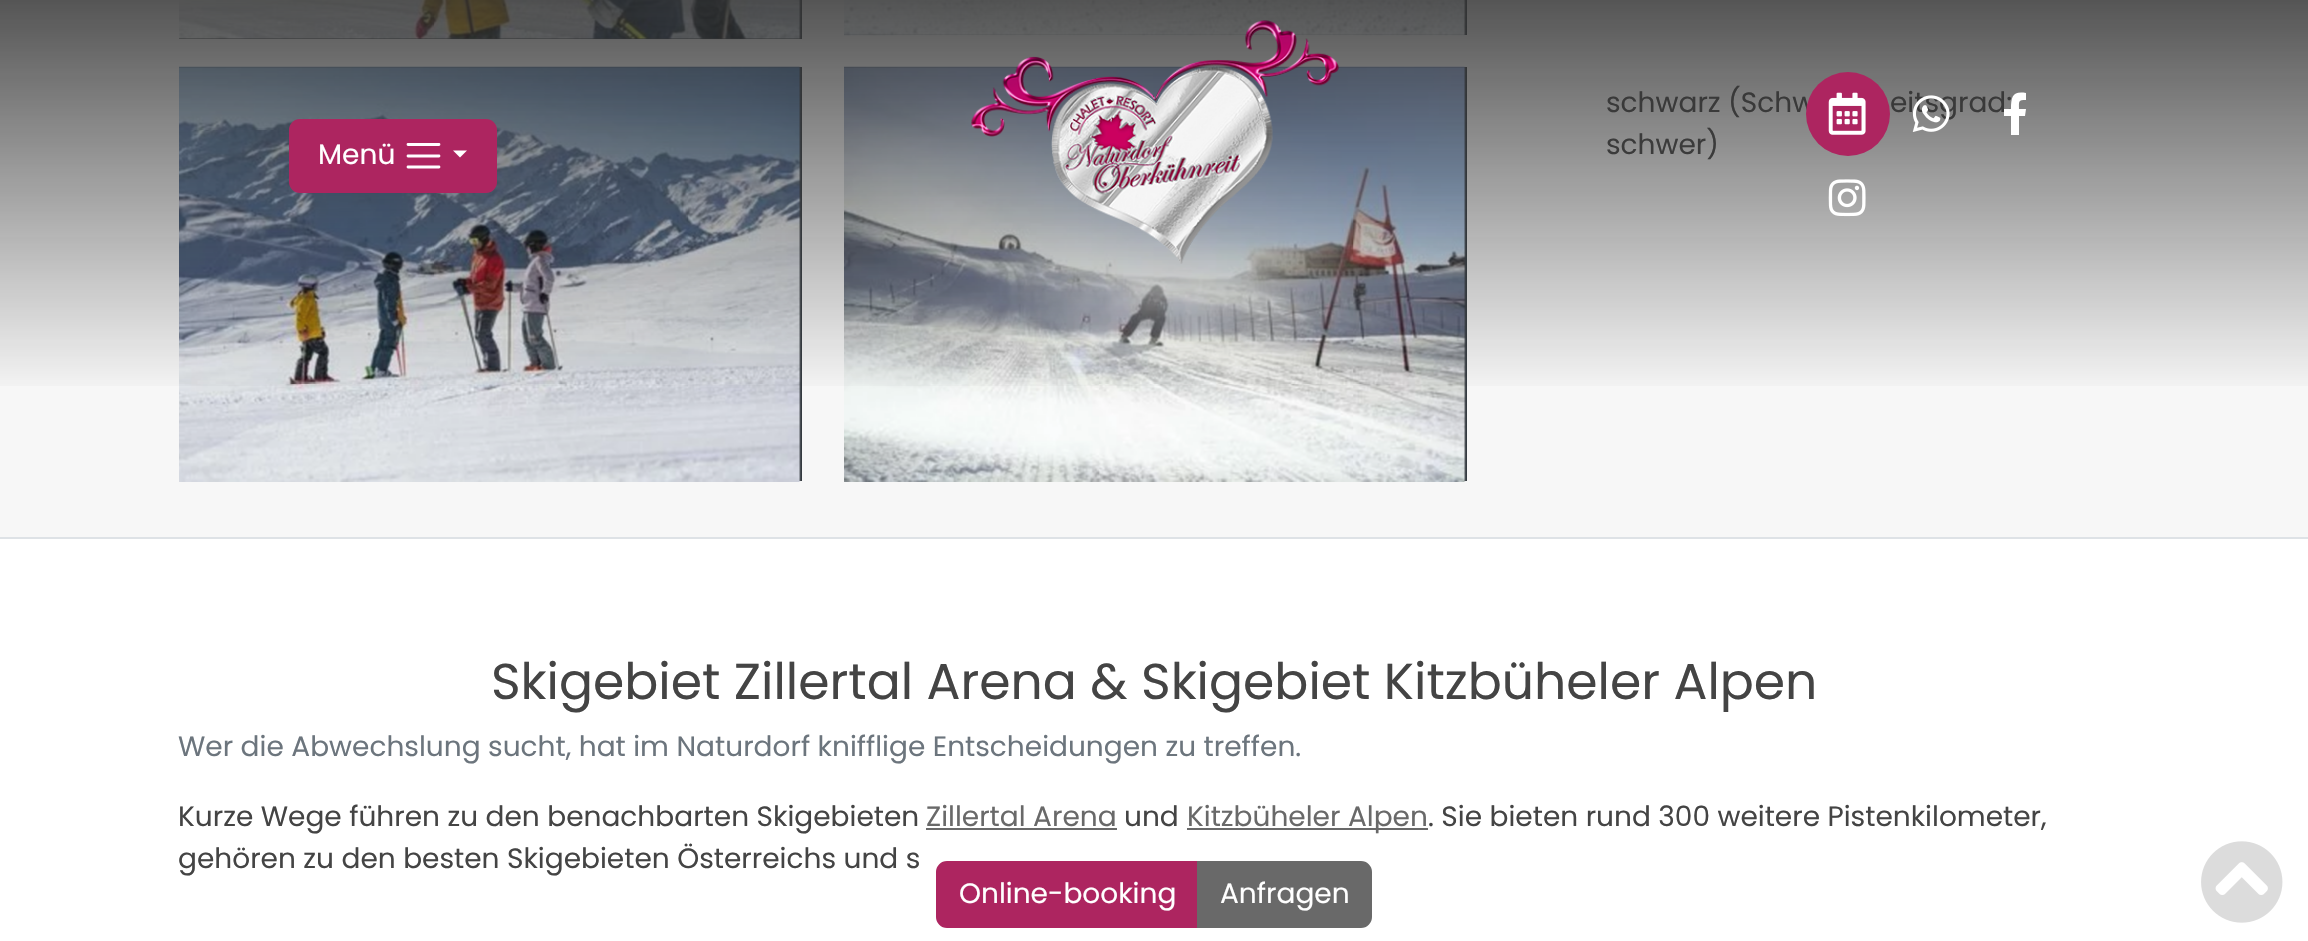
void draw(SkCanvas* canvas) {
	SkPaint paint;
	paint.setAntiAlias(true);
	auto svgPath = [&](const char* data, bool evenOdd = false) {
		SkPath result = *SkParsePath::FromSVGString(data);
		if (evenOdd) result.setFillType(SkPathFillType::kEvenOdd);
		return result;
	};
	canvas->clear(0xffffffff);
	paint.setColor(0xfff7f7f7);
	canvas->drawRect(SkRect::MakeXYWH(0, 0, 2308, 537), paint);
	paint.setColor(0xffdee2e6);
	canvas->drawRect(SkRect::MakeXYWH(0, 537, 2308, 2), paint);
	paint.setColor(0xff343a40);
	canvas->drawRect(SkRect::MakeXYWH(179, 0, 623, 39), paint);
	canvas->drawImageRect(SkImages::DeferredFromEncodedData(SkData::MakeFromFileName("img1.png")), SkRect::MakeXYWH(179, 0, 622, 40), SkSamplingOptions());
	canvas->drawRect(SkRect::MakeXYWH(844, 0, 623, 35), paint);
	canvas->drawImageRect(SkImages::DeferredFromEncodedData(SkData::MakeFromFileName("img2.png")), SkRect::MakeXYWH(844, 0, 622, 36), SkSamplingOptions());
	canvas->drawRect(SkRect::MakeXYWH(179, 67, 623, 414), paint);
	canvas->drawImageRect(SkImages::DeferredFromEncodedData(SkData::MakeFromFileName("img3.png")), SkRect::MakeXYWH(179, 66, 622, 416), SkSamplingOptions());
	canvas->drawRect(SkRect::MakeXYWH(844, 67, 623, 414), paint);
	canvas->drawImageRect(SkImages::DeferredFromEncodedData(SkData::MakeFromFileName("img4.png")), SkRect::MakeXYWH(844, 66, 622, 416), SkSamplingOptions());
	SkFont f1(fontMgr->matchFamilyStyle("Poppins", SkFontStyle::Normal()), 28);
	f1.setSubpixel(true);
	paint.setColor(0xff444444);
	canvas->drawString("schwarz (Schw", 1606, 112, f1, paint);
	canvas->drawString("eitsgrad:", 1890, 112, f1, paint);
	canvas->drawString("schwer)", 1606, 154, f1, paint);
	SkFont f2(fontMgr->matchFamilyStyle("Poppins", SkFontStyle::Normal()), 50.4);
	f2.setSubpixel(true);
	canvas->drawString("Skigebiet Zillertal Arena & Skigebiet Kitzbüheler Alpen", 491, 699, f2, paint);
	paint.setColor(0xff6c757d);
	canvas->drawString("Wer die Abwechslung sucht, hat im Naturdorf knifflige Entscheidungen zu treffen.", 178, 756, f1, paint);
	paint.setColor(0xff444444);
	canvas->drawString("Kurze Wege führen zu den benachbarten Skigebieten", 178, 826, f1, paint);
	paint.setColor(0xff696969);
	canvas->drawString("Zillertal Arena", 926, 826, f1, paint);
	canvas->drawRect(SkRect::MakeXYWH(926, 828, 191, 2), paint);
	paint.setColor(0xff444444);
	canvas->drawString("und", 1124, 826, f1, paint);
	paint.setColor(0xff696969);
	canvas->drawRect(SkRect::MakeXYWH(1187, 828, 241, 2), paint);
	canvas->drawString("Kitzbüheler Alpen", 1187, 826, f1, paint);
	paint.setColor(0xff444444);
	canvas->drawString(". Sie bieten rund 300 weitere Pistenkilometer,", 1428, 826, f1, paint);
	canvas->drawString("gehören zu den besten Skigebieten Österreichs und s", 178, 868, f1, paint);
	{
		const SkColor colors[] = {0x00323232, 0xff323232};
		const float stops[] = {0, 1};
		const SkPoint ends[] = {{1154, 396}, {1154, -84}};
		paint.setShader(SkGradientShader::MakeLinear(ends, colors, stops, 2, SkTileMode::kClamp));
		paint.setAlpha(255);
	}
	canvas->drawRect(SkRect::MakeXYWH(0, 0, 2308, 386), paint);
	paint.setShader(nullptr);
	paint.setColor(0xffad2560);
	canvas->drawRoundRect(SkRect::MakeXYWH(290, 120, 206, 72), 10, 10, paint);
	paint.setStroke(true);
	paint.setStrokeWidth(2);
	canvas->drawRoundRect(SkRect::MakeXYWH(290, 120, 206, 72), 10, 10, paint);
	paint.setStroke(false);
	paint.setColor(0xffffffff);
	canvas->drawString("Menü", 318, 164, f1, paint);
	paint.setStroke(true);
	paint.setStrokeWidth(2.8);
	paint.setStrokeCap(SkPaint::kRound_Cap);
	canvas->drawPath(svgPath("M408 144.5H439M408 156H439M408 167H439"), paint);
	paint.setStroke(false);
	canvas->drawPath(svgPath("M453 150.5H467L460 157.5Z"), paint);
	canvas->drawImageRect(SkImages::DeferredFromEncodedData(SkData::MakeFromFileName("img5.png")), SkRect::MakeXYWH(971, 20, 368, 244), SkSamplingOptions());
	paint.setColor(0xffad2560);
	canvas->drawCircle(1848, 114, 42, paint);
	canvas->drawImageRect(SkImages::DeferredFromEncodedData(SkData::MakeFromFileName("img6.png")), SkRect::MakeXYWH(1828, 92, 38, 43), SkSamplingOptions());
	canvas->drawImageRect(SkImages::DeferredFromEncodedData(SkData::MakeFromFileName("img7.png")), SkRect::MakeXYWH(1912, 95, 38, 37), SkSamplingOptions());
	paint.setColor(0xffffffff);
	canvas->drawPath(svgPath("M2025 116L2026 109H2019C2019 101 2018 100 2026 100V93C2013 91 2011 96 2011 109H2004V116H2011V135H2019V116Z"), paint);
	canvas->drawImageRect(SkImages::DeferredFromEncodedData(SkData::MakeFromFileName("img8.png")), SkRect::MakeXYWH(1828, 179, 38, 38), SkSamplingOptions());
	paint.setColor(0xffad2560);
	canvas->drawPath(svgPath("M947 862H1198V927H947C941.5 927 937 922.5 937 917V872C937 866.5 941.5 862 947 862Z"), paint);
	paint.setStroke(true);
	paint.setStrokeWidth(2);
	paint.setStrokeCap(SkPaint::kButt_Cap);
	canvas->drawPath(svgPath("M947 862H1198V927H947C941.5 927 937 922.5 937 917V872C937 866.5 941.5 862 947 862Z"), paint);
	paint.setStroke(false);
	paint.setColor(0xffffffff);
	canvas->drawString("Online-booking", 959, 903, f1, paint);
	paint.setColor(0xff696969);
	canvas->drawPath(svgPath("M1198 862H1361C1366.5 862 1371 866.5 1371 872V917C1371 922.5 1366.5 927 1361 927H1198Z"), paint);
	paint.setStroke(true);
	canvas->drawPath(svgPath("M1198 862H1361C1366.5 862 1371 866.5 1371 872V917C1371 922.5 1366.5 927 1361 927H1198Z"), paint);
	paint.setStroke(false);
	paint.setColor(0xffffffff);
	canvas->drawString("Anfragen", 1220, 903, f1, paint);
	canvas->drawImageRect(SkImages::DeferredFromEncodedData(SkData::MakeFromFileName("img9.png")), SkRect::MakeXYWH(2201, 841, 82, 82), SkSamplingOptions());
}
